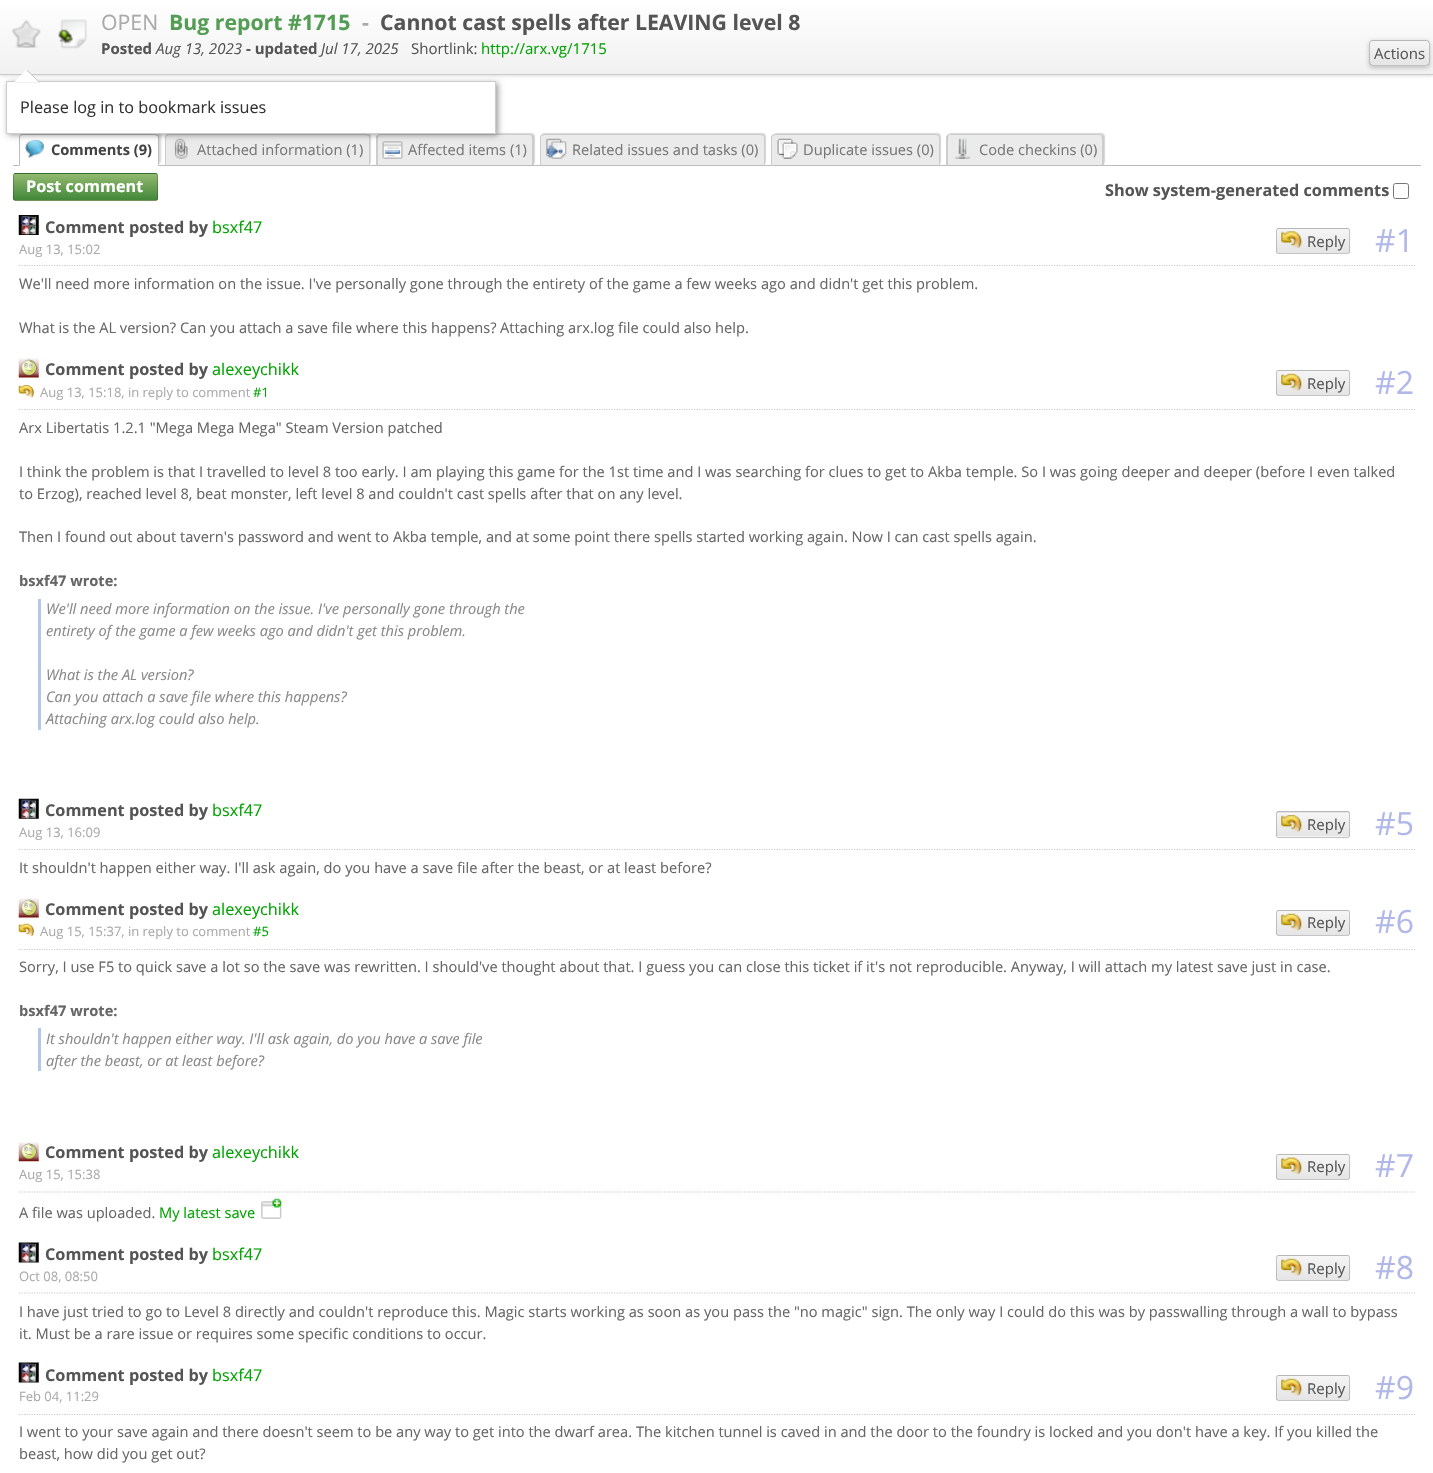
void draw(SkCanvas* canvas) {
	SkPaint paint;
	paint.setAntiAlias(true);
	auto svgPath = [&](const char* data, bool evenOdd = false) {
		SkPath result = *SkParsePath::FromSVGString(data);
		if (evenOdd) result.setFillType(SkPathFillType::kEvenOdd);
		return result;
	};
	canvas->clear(0xffffffff);
	paint.setColor(0x33000000);
	paint.setMaskFilter(SkMaskFilter::MakeBlur(kNormal_SkBlurStyle, 2));
	canvas->drawRect(SkRect::MakeXYWH(0, 0, 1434, 75), paint);
	paint.setMaskFilter(nullptr);
	{
		const SkColor colors[] = {0xffffffff, 0xfff1f1f1};
		const float stops[] = {0, 1};
		const SkPoint ends[] = {{717, 0}, {717, 74}};
		paint.setShader(SkGradientShader::MakeLinear(ends, colors, stops, 2, SkTileMode::kClamp));
		paint.setAlpha(255);
	}
	canvas->drawRect(SkRect::MakeXYWH(0, 0, 1433, 74), paint);
	paint.setShader(nullptr);
	paint.setColor(0xffcccccc);
	canvas->drawRect(SkRect::MakeXYWH(0, 74, 1433, 1), paint);
	canvas->drawImageRect(SkImages::DeferredFromEncodedData(SkData::MakeFromFileName("img1.png")), SkRect::MakeXYWH(58, 19, 29, 30), SkSamplingOptions());
	SkFont f1(fontMgr->matchFamilyStyle("Open Sans", SkFontStyle::Normal()), 21.25);
	f1.setSubpixel(true);
	paint.setColor(0xffaaaaaa);
	canvas->drawString("OPEN", 101, 30, f1, paint);
	SkFont f2(fontMgr->matchFamilyStyle("Open Sans", SkFontStyle::Bold()), 21.25);
	f2.setSubpixel(true);
	paint.setColor(0xff549d54);
	canvas->drawString("Bug report #1715", 169, 30, f2, paint);
	paint.setColor(0xffaaaaaa);
	canvas->drawString("-", 362, 30, f2, paint);
	paint.setColor(0xff555555);
	canvas->drawString("Cannot cast spells after LEAVING level 8", 380, 30, f2, paint);
	SkFont f3(fontMgr->matchFamilyStyle("Open Sans", SkFontStyle::Bold()), 15);
	f3.setSubpixel(true);
	canvas->drawString("Posted", 101, 54, f3, paint);
	SkFont f4(fontMgr->matchFamilyStyle("Open Sans", SkFontStyle::Italic()), 15);
	f4.setSubpixel(true);
	canvas->drawString("Aug 13, 2023", 156, 54, f4, paint);
	canvas->drawString("- updated", 246, 54, f3, paint);
	canvas->drawString("Jul 17, 2025", 321, 54, f4, paint);
	SkFont f5(fontMgr->matchFamilyStyle("Open Sans", SkFontStyle::Normal()), 15);
	f5.setSubpixel(true);
	canvas->drawString("Shortlink:", 411, 54, f5, paint);
	paint.setColor(0xff00a400);
	canvas->drawString("http://arx.vg/1715", 481, 54, f5, paint);
	canvas->drawImageRect(SkImages::DeferredFromEncodedData(SkData::MakeFromFileName("img2.png")), SkRect::MakeXYWH(12, 19, 29, 29), SkSamplingOptions());
	paint.setColor(0xffbbbbbb);
	canvas->drawRect(SkRect::MakeXYWH(13, 165, 1408, 1), paint);
	paint.setColor(0x33323232);
	paint.setMaskFilter(SkMaskFilter::MakeBlur(kNormal_SkBlurStyle, 1));
	canvas->drawRoundRect(SkRect::MakeXYWH(21, 131, 140, 33), 4, 4, paint);
	paint.setMaskFilter(nullptr);
	paint.setColor(0xffffffff);
	canvas->drawPath(svgPath("M23 134H155C157 134 159 136 159 138V166H19V138C19 136 21 134 23 134Z"), paint);
	paint.setColor(0xffbbbbbb);
	canvas->drawPath(svgPath("M22 134L20 135L21 136L22 135H155L157 136L158 135L155 134Z"), paint);
	canvas->drawPath(svgPath("M157.5 135L159 136.5V166L157.5 165H158V138C158 137 157.5 136 157 135.5Z"), paint);
	paint.setColor(0xffffffff);
	canvas->drawPath(svgPath("M158 166H19L20 165H158Z"), paint);
	paint.setColor(0xffbbbbbb);
	canvas->drawPath(svgPath("M20 135C19.5 135.5 19 136.5 19 138V166L20 165V138C20 137 20.5 136 20.5 135.5Z"), paint);
	canvas->drawImageRect(SkImages::DeferredFromEncodedData(SkData::MakeFromFileName("img3.png")), SkRect::MakeXYWH(25, 139, 19, 19), SkSamplingOptions());
	paint.setColor(0x33323232);
	paint.setMaskFilter(SkMaskFilter::MakeBlur(kNormal_SkBlurStyle, 0.5));
	canvas->drawRoundRect(SkRect::MakeXYWH(166, 133, 205, 32), 4, 4, paint);
	paint.setMaskFilter(nullptr);
	paint.setColor(0xffebebeb);
	canvas->drawPath(svgPath("M169 134H366C368 134 370 136 370 138V166H165V138C165 136 167 134 169 134Z"), paint);
	paint.setColor(0xffcccccc);
	canvas->drawPath(svgPath("M169 134L166 135L167 136L169 135H366L368 136L369 135L366 134Z"), paint);
	canvas->drawPath(svgPath("M369 135C369.5 135.5 370 136.5 370 138V166L369 165V138C369 137 368.5 136 368 135.5Z"), paint);
	paint.setColor(0xffbbbbbb);
	canvas->drawPath(svgPath("M370 166H165L166 165H369Z"), paint);
	paint.setColor(0xffcccccc);
	canvas->drawPath(svgPath("M165 138V166L166 165V138C166 137 166.5 136 167 135.5L166 135C165.5 135.5 165 136.5 165 138Z"), paint);
	canvas->drawImageRect(SkImages::DeferredFromEncodedData(SkData::MakeFromFileName("img4.png")), SkRect::MakeXYWH(174, 138, 14, 21), SkSamplingOptions());
	paint.setColor(0x33323232);
	paint.setMaskFilter(SkMaskFilter::MakeBlur(kNormal_SkBlurStyle, 0.5));
	canvas->drawRoundRect(SkRect::MakeXYWH(378, 133, 157, 32), 4, 4, paint);
	paint.setMaskFilter(nullptr);
	paint.setColor(0xffebebeb);
	canvas->drawPath(svgPath("M380 134H530C532 134 534 136 534 138V166H376V138C376 136 378 134 380 134Z"), paint);
	paint.setColor(0xffcccccc);
	canvas->drawPath(svgPath("M380 134L377 135L378 136L379 135H480H530L532 136L533 135L530 134Z"), paint);
	canvas->drawPath(svgPath("M532.5 135L534 136.5V166L532 164.5V138L531.5 136Z"), paint);
	paint.setColor(0xffbbbbbb);
	canvas->drawPath(svgPath("M534 166H376L378 164V165H532V164Z"), paint);
	paint.setColor(0xffcccccc);
	canvas->drawPath(svgPath("M376 136.5L377.5 135L378.5 136L378 138V164.5L376.5 166H376Z"), paint);
	canvas->drawImageRect(SkImages::DeferredFromEncodedData(SkData::MakeFromFileName("img5.png")), SkRect::MakeXYWH(382, 141, 21, 18), SkSamplingOptions());
	paint.setColor(0x66000000);
	paint.setMaskFilter(SkMaskFilter::MakeBlur(kNormal_SkBlurStyle, 3));
	canvas->drawRect(SkRect::MakeXYWH(8, 83, 490, 52), paint);
	paint.setMaskFilter(nullptr);
	paint.setColor(0xffffffff);
	canvas->drawRect(SkRect::MakeXYWH(6.5, 81.5, 489, 52), paint);
	paint.setStroke(true);
	paint.setStrokeWidth(1);
	paint.setColor(0xffcccccc);
	canvas->drawRect(SkRect::MakeXYWH(6.5, 81.5, 489, 52), paint);
	paint.setStroke(false);
	canvas->drawPath(svgPath("M40 82.5H15L27.5 70Z"), paint);
	paint.setColor(0xffffffff);
	canvas->drawPath(svgPath("M39 82.5H14L26 70Z"), paint);
	SkFont f6(fontMgr->matchFamilyStyle("Open Sans", SkFontStyle::Normal()), 16.25);
	f6.setSubpixel(true);
	paint.setColor(0xff333333);
	canvas->drawString("Please log in to bookmark issues", 20, 113, f6, paint);
	paint.setColor(0x33000000);
	paint.setMaskFilter(SkMaskFilter::MakeBlur(kNormal_SkBlurStyle, 2));
	canvas->drawRoundRect(SkRect::MakeXYWH(1369, 41, 61, 27), 4, 4, paint);
	paint.setMaskFilter(nullptr);
	canvas->save();
	canvas->clipPath(svgPath("M1373 40H1426C1428 40 1430 42 1430 44V62C1430 64 1428 66 1426 66H1373C1371 66 1369 64 1369 62V44C1369 42 1371 40 1373 40Z"), true);
	{
		const SkColor colors[] = {0xfff5f5f5, 0xffe5e5e5};
		const float stops[] = {0, 1};
		const SkPoint ends[] = {{1399, 17}, {1399, 41}};
		paint.setShader(SkGradientShader::MakeLinear(ends, colors, stops, 2, SkTileMode::kClamp));
		paint.setAlpha(255);
	}
	canvas->drawRect(SkRect::MakeXYWH(1369, 40, 61, 1), paint);
	{
		const SkColor colors[] = {0xfff5f5f5, 0xffe5e5e5};
		const float stops[] = {0, 1};
		const SkPoint ends[] = {{1399, 41}, {1399, 65}};
		paint.setShader(SkGradientShader::MakeLinear(ends, colors, stops, 2, SkTileMode::kClamp));
		paint.setAlpha(255);
	}
	canvas->drawRect(SkRect::MakeXYWH(1369, 41, 61, 24), paint);
	{
		const SkColor colors[] = {0xfff5f5f5, 0xffe5e5e5};
		const float stops[] = {0, 1};
		const SkPoint ends[] = {{1399, 65}, {1399, 89}};
		paint.setShader(SkGradientShader::MakeLinear(ends, colors, stops, 2, SkTileMode::kClamp));
		paint.setAlpha(255);
	}
	canvas->drawRect(SkRect::MakeXYWH(1369, 65, 61, 1), paint);
	canvas->restore();
	paint.setStroke(true);
	paint.setShader(nullptr);
	paint.setColor(0x33000000);
	canvas->drawRoundRect(SkRect::MakeXYWH(1369.5, 40.5, 60, 25), 3.5, 3.5, paint);
	paint.setStroke(false);
	paint.setColor(0xff555555);
	canvas->drawString("Actions", 1374, 59, f5, paint);
	SkFont f7(fontMgr->matchFamilyStyle("Open Sans", SkFontStyle::Bold()), 14.62);
	f7.setSubpixel(true);
	paint.setColor(0xff444444);
	canvas->drawString("Comments (9)", 51, 155, f7, paint);
	SkFont f8(fontMgr->matchFamilyStyle("Open Sans", SkFontStyle::Normal()), 14.62);
	f8.setSubpixel(true);
	paint.setColor(0xff777777);
	canvas->drawString("Attached information (1)", 197, 155, f8, paint);
	canvas->drawString("Affected items (1)", 408, 155, f8, paint);
	paint.setColor(0x33323232);
	paint.setMaskFilter(SkMaskFilter::MakeBlur(kNormal_SkBlurStyle, 0.5));
	canvas->drawRoundRect(SkRect::MakeXYWH(541, 133, 225, 32), 4, 4, paint);
	paint.setMaskFilter(nullptr);
	paint.setColor(0xffebebeb);
	canvas->drawPath(svgPath("M544 134H761C763 134 765 136 765 138V166H540V138C540 136 542 134 544 134Z"), paint);
	paint.setColor(0xffcccccc);
	canvas->drawPath(svgPath("M544 134L541 135L542 136L544 135H761L763 136L764 135L761 134Z"), paint);
	canvas->drawPath(svgPath("M764 135C764.5 135.5 765 136.5 765 138V166L764 165V138C764 137 763.5 136 763 135.5Z"), paint);
	paint.setColor(0xffbbbbbb);
	canvas->drawPath(svgPath("M765 166H540L541 165H764Z"), paint);
	paint.setColor(0xffcccccc);
	canvas->drawPath(svgPath("M540 138V166L541 165V138C541 137 541.5 136 542 135.5L541 135C540.5 135.5 540 136.5 540 138Z"), paint);
	canvas->drawImageRect(SkImages::DeferredFromEncodedData(SkData::MakeFromFileName("img6.png")), SkRect::MakeXYWH(546, 138, 21, 21), SkSamplingOptions());
	paint.setColor(0xff777777);
	canvas->drawString("Related issues and tasks (0)", 572, 155, f8, paint);
	paint.setColor(0x33323232);
	paint.setMaskFilter(SkMaskFilter::MakeBlur(kNormal_SkBlurStyle, 0.5));
	canvas->drawRoundRect(SkRect::MakeXYWH(773, 133, 168, 32), 4, 4, paint);
	paint.setMaskFilter(nullptr);
	paint.setColor(0xffebebeb);
	canvas->drawPath(svgPath("M775 134H936C938 134 940 136 940 138V166H771V138C771 136 773 134 775 134Z"), paint);
	paint.setColor(0xffcccccc);
	canvas->drawPath(svgPath("M775 134L772 135L773 136L775 135H936L938 136L939 135L936 134Z"), paint);
	canvas->drawPath(svgPath("M939 135C939.5 135.5 940 136.5 940 138V166L939 165V138C939 137 938.5 136 938 135.5Z"), paint);
	paint.setColor(0xffbbbbbb);
	canvas->drawPath(svgPath("M940 166H772V165H939Z"), paint);
	paint.setColor(0xffcccccc);
	canvas->drawPath(svgPath("M771 136.5L772.5 135L773 135.5C772.5 136 772 137 772 138V165H772.5L771 166Z"), paint);
	canvas->drawImageRect(SkImages::DeferredFromEncodedData(SkData::MakeFromFileName("img7.png")), SkRect::MakeXYWH(777, 138, 21, 21), SkSamplingOptions());
	paint.setColor(0xff777777);
	canvas->drawString("Duplicate issues (0)", 803, 155, f8, paint);
	paint.setColor(0x33323232);
	paint.setMaskFilter(SkMaskFilter::MakeBlur(kNormal_SkBlurStyle, 0.5));
	canvas->drawRoundRect(SkRect::MakeXYWH(948, 133, 157, 32), 4, 4, paint);
	paint.setMaskFilter(nullptr);
	paint.setColor(0xffebebeb);
	canvas->drawPath(svgPath("M950 134H1100C1102 134 1104 136 1104 138V166H946V138C946 136 948 134 950 134Z"), paint);
	paint.setColor(0xffcccccc);
	canvas->drawPath(svgPath("M950 134L947 135L948 136L949 135H1050H1100L1102 136L1103 135L1100 134Z"), paint);
	canvas->drawPath(svgPath("M1102.5 135L1104 136.5V166L1102 164.5V138L1101.5 136Z"), paint);
	paint.setColor(0xffbbbbbb);
	canvas->drawPath(svgPath("M1104 166H946L948 164V165H1102V164Z"), paint);
	paint.setColor(0xffcccccc);
	canvas->drawPath(svgPath("M946 136.5L947.5 135L948.5 136L948 138V164.5L946.5 166H946Z"), paint);
	canvas->drawImageRect(SkImages::DeferredFromEncodedData(SkData::MakeFromFileName("img8.png")), SkRect::MakeXYWH(955, 138, 15, 21), SkSamplingOptions());
	paint.setColor(0xff777777);
	canvas->drawString("Code checkins (0)", 979, 155, f8, paint);
	canvas->save();
	canvas->clipPath(svgPath("M15.5 173H155.5C157 173 158 174 158 175.5V198.5C158 200 157 201 155.5 201H15.5C14 201 13 200 13 198.5V175.5C13 174 14 173 15.5 173Z"), true);
	{
		const SkColor colors[] = {0xff92ba6f, 0xff428739};
		const float stops[] = {0, 1};
		const SkPoint ends[] = {{85, 148}, {85, 174}};
		paint.setShader(SkGradientShader::MakeLinear(ends, colors, stops, 2, SkTileMode::kClamp));
		paint.setAlpha(255);
	}
	canvas->drawRect(SkRect::MakeXYWH(13, 173, 145, 1), paint);
	{
		const SkColor colors[] = {0xff92ba6f, 0xff428739};
		const float stops[] = {0, 1};
		const SkPoint ends[] = {{85, 174}, {85, 200}};
		paint.setShader(SkGradientShader::MakeLinear(ends, colors, stops, 2, SkTileMode::kClamp));
		paint.setAlpha(255);
	}
	canvas->drawRect(SkRect::MakeXYWH(13, 174, 145, 26), paint);
	{
		const SkColor colors[] = {0xff92ba6f, 0xff428739};
		const float stops[] = {0, 1};
		const SkPoint ends[] = {{85, 200}, {85, 226}};
		paint.setShader(SkGradientShader::MakeLinear(ends, colors, stops, 2, SkTileMode::kClamp));
		paint.setAlpha(255);
	}
	canvas->drawRect(SkRect::MakeXYWH(13, 200, 145, 1), paint);
	canvas->restore();
	paint.setStroke(true);
	paint.setShader(nullptr);
	paint.setColor(0x33000000);
	canvas->drawRoundRect(SkRect::MakeXYWH(13.5, 173.5, 144, 27), 2, 2, paint);
	SkFont f9(fontMgr->matchFamilyStyle("Open Sans", SkFontStyle::Bold()), 16.25);
	f9.setSubpixel(true);
	paint.setStroke(false);
	paint.setColor(0xffffffff);
	canvas->drawString("Post comment", 26, 192, f9, paint);
	paint.setColor(0xff555555);
	canvas->drawString("Show system-generated comments", 1105, 196, f9, paint);
	paint.setStroke(true);
	paint.setColor(0xff767676);
	canvas->drawRoundRect(SkRect::MakeXYWH(1393.5, 183.5, 15, 15), 2, 2, paint);
	paint.setStrokeWidth(1.2);
	paint.setColor(0xffcccccc);
	paint.setPathEffect(SkDashPathEffect::Make({{1.25f, 1.25f}}, 0));
	canvas->drawPath(svgPath("M19 265.5H1415"), paint);
	paint.setPathEffect(nullptr);
	paint.setStroke(false);
	paint.setColor(0xff555555);
	canvas->drawString("Comment posted by", 45, 233, f9, paint);
	canvas->drawImageRect(SkImages::DeferredFromEncodedData(SkData::MakeFromFileName("img9.png")), SkRect::MakeXYWH(18, 215, 21, 20), SkSamplingOptions());
	paint.setColor(0xff00a400);
	canvas->drawString("bsxf47", 212, 233, f6, paint);
	canvas->save();
	canvas->clipPath(svgPath("M1278.5 228H1347.5C1349 228 1350 229 1350 230.5V251.5C1350 253 1349 254 1347.5 254H1278.5C1277 254 1276 253 1276 251.5V230.5C1276 229 1277 228 1278.5 228Z"), true);
	{
		const SkColor colors[] = {0xfff5f5f5, 0xffe5e5e5};
		const float stops[] = {0, 1};
		const SkPoint ends[] = {{1313, 205}, {1313, 229}};
		paint.setShader(SkGradientShader::MakeLinear(ends, colors, stops, 2, SkTileMode::kClamp));
		paint.setAlpha(255);
	}
	canvas->drawRect(SkRect::MakeXYWH(1276, 228, 74, 1), paint);
	{
		const SkColor colors[] = {0xfff5f5f5, 0xffe5e5e5};
		const float stops[] = {0, 1};
		const SkPoint ends[] = {{1313, 229}, {1313, 253}};
		paint.setShader(SkGradientShader::MakeLinear(ends, colors, stops, 2, SkTileMode::kClamp));
		paint.setAlpha(255);
	}
	canvas->drawRect(SkRect::MakeXYWH(1276, 229, 74, 24), paint);
	{
		const SkColor colors[] = {0xfff5f5f5, 0xffe5e5e5};
		const float stops[] = {0, 1};
		const SkPoint ends[] = {{1313, 253}, {1313, 276}};
		paint.setShader(SkGradientShader::MakeLinear(ends, colors, stops, 2, SkTileMode::kClamp));
		paint.setAlpha(255);
	}
	canvas->drawRect(SkRect::MakeXYWH(1276, 253, 74, 1), paint);
	canvas->restore();
	paint.setStroke(true);
	paint.setStrokeWidth(1);
	paint.setShader(nullptr);
	paint.setColor(0x33000000);
	canvas->drawRoundRect(SkRect::MakeXYWH(1276.5, 228.5, 73, 25), 2, 2, paint);
	canvas->drawImageRect(SkImages::DeferredFromEncodedData(SkData::MakeFromFileName("img10.png")), SkRect::MakeXYWH(1281, 231, 21, 18), SkSamplingOptions());
	paint.setStroke(false);
	paint.setColor(0xff555555);
	canvas->drawString("Reply", 1307, 247, f5, paint);
	SkFont f10(fontMgr->matchFamilyStyle("Open Sans", SkFontStyle::Normal()), 32);
	f10.setSubpixel(true);
	paint.setColor(0xffb1b8e9);
	canvas->drawString("#1", 1375, 252, f10, paint);
	SkFont f11(fontMgr->matchFamilyStyle("Open Sans", SkFontStyle::Normal()), 13);
	f11.setSubpixel(true);
	paint.setColor(0xffaaaaaa);
	canvas->drawString("Aug 13, 15:02", 19, 254, f11, paint);
	paint.setColor(0xff666666);
	canvas->drawString("We'll need more information on the issue. I've personally gone through the entirety of the game a few weeks ago and didn't get this problem.", 19, 289, f8, paint);
	canvas->drawString("What is the AL version? Can you attach a save file where this happens?", 19, 333, f8, paint);
	canvas->drawString("Attaching arx.log file could also help.", 500, 333, f8, paint);
	paint.setStroke(true);
	paint.setStrokeWidth(1.2);
	paint.setColor(0xffcccccc);
	paint.setPathEffect(SkDashPathEffect::Make({{1.25f, 1.25f}}, 0));
	canvas->drawPath(svgPath("M19 409.5H1415"), paint);
	paint.setPathEffect(nullptr);
	paint.setStroke(false);
	paint.setColor(0xff555555);
	canvas->drawString("Comment posted by", 45, 375, f9, paint);
	canvas->drawImageRect(SkImages::DeferredFromEncodedData(SkData::MakeFromFileName("img11.png")), SkRect::MakeXYWH(18, 358, 21, 20), SkSamplingOptions());
	paint.setColor(0xff00a400);
	canvas->drawString("alexeychikk", 212, 375, f6, paint);
	canvas->save();
	canvas->clipPath(svgPath("M1278.5 370H1347.5C1349 370 1350 371 1350 372.5V393.5C1350 395 1349 396 1347.5 396H1278.5C1277 396 1276 395 1276 393.5V372.5C1276 371 1277 370 1278.5 370Z"), true);
	{
		const SkColor colors[] = {0xfff5f5f5, 0xffe5e5e5};
		const float stops[] = {0, 1};
		const SkPoint ends[] = {{1313, 348}, {1313, 371}};
		paint.setShader(SkGradientShader::MakeLinear(ends, colors, stops, 2, SkTileMode::kClamp));
		paint.setAlpha(255);
	}
	canvas->drawRect(SkRect::MakeXYWH(1276, 370, 74, 1), paint);
	{
		const SkColor colors[] = {0xfff5f5f5, 0xffe5e5e5};
		const float stops[] = {0, 1};
		const SkPoint ends[] = {{1313, 371}, {1313, 395}};
		paint.setShader(SkGradientShader::MakeLinear(ends, colors, stops, 2, SkTileMode::kClamp));
		paint.setAlpha(255);
	}
	canvas->drawRect(SkRect::MakeXYWH(1276, 371, 74, 24), paint);
	{
		const SkColor colors[] = {0xfff5f5f5, 0xffe5e5e5};
		const float stops[] = {0, 1};
		const SkPoint ends[] = {{1313, 395}, {1313, 419}};
		paint.setShader(SkGradientShader::MakeLinear(ends, colors, stops, 2, SkTileMode::kClamp));
		paint.setAlpha(255);
	}
	canvas->drawRect(SkRect::MakeXYWH(1276, 395, 74, 1), paint);
	canvas->restore();
	paint.setStroke(true);
	paint.setStrokeWidth(1);
	paint.setShader(nullptr);
	paint.setColor(0x33000000);
	canvas->drawRoundRect(SkRect::MakeXYWH(1276.5, 370.5, 73, 25), 2, 2, paint);
	canvas->drawImageRect(SkImages::DeferredFromEncodedData(SkData::MakeFromFileName("img12.png")), SkRect::MakeXYWH(1281, 373, 21, 18), SkSamplingOptions());
	paint.setStroke(false);
	paint.setColor(0xff555555);
	canvas->drawString("Reply", 1307, 389, f5, paint);
	paint.setColor(0xffb1b8e9);
	canvas->drawString("#2", 1375, 394, f10, paint);
	canvas->drawImageRect(SkImages::DeferredFromEncodedData(SkData::MakeFromFileName("img13.png")), SkRect::MakeXYWH(18, 385, 16, 13), SkSamplingOptions());
	paint.setColor(0xffaaaaaa);
	canvas->drawString("Aug 13, 15:18, in reply to comment", 40, 397, f11, paint);
	paint.setColor(0xff00a400);
	canvas->drawString("#1", 253, 397, f11, paint);
	paint.setColor(0xff666666);
	canvas->drawString("Arx Libertatis 1.2.1 \"Mega Mega Mega\" Steam Version patched", 19, 433, f8, paint);
	canvas->drawString("I think the problem is that I travelled to level 8 too early. I am playing this game for the 1st time and I was searching for clues to get to Akba temple. So I was going deeper and deeper (before I even talked", 19, 477, f8, paint);
	canvas->drawString("to Erzog), reached level 8, beat monster, left level 8 and couldn't cast spells after that on any level.", 19, 499, f8, paint);
	canvas->drawString("Then I found out about tavern's password and went to Akba temple, and at some point there spells started working again. Now I can cast spells again.", 19, 542, f8, paint);
	canvas->drawString("bsxf47 wrote:", 19, 586, f7, paint);
	paint.setColor(0xffb0c9e7);
	canvas->drawRect(SkRect::MakeXYWH(38, 599, 3, 131), paint);
	SkFont f12(fontMgr->matchFamilyStyle("Open Sans", SkFontStyle::Italic()), 14.62);
	f12.setSubpixel(true);
	paint.setColor(0xff888888);
	canvas->drawString("We'll need more information on the issue. I've personally gone through the", 46, 614, f12, paint);
	canvas->drawString("entirety of the game a few weeks ago and didn't get this problem.", 46, 636, f12, paint);
	canvas->drawString("What is the AL version?", 46, 680, f12, paint);
	canvas->drawString("Can you attach a save file where this happens?", 46, 702, f12, paint);
	canvas->drawString("Attaching arx.log could also help.", 46, 724, f12, paint);
	paint.setStroke(true);
	paint.setStrokeWidth(1.2);
	paint.setColor(0xffcccccc);
	paint.setPathEffect(SkDashPathEffect::Make({{1.25f, 1.25f}}, 0));
	canvas->drawPath(svgPath("M19 849.5H1415"), paint);
	paint.setPathEffect(nullptr);
	paint.setStroke(false);
	paint.setColor(0xff555555);
	canvas->drawString("Comment posted by", 45, 816, f9, paint);
	canvas->drawImageRect(SkImages::DeferredFromEncodedData(SkData::MakeFromFileName("img14.png")), SkRect::MakeXYWH(18, 798, 21, 21), SkSamplingOptions());
	paint.setColor(0xff00a400);
	canvas->drawString("bsxf47", 212, 816, f6, paint);
	canvas->save();
	canvas->clipPath(svgPath("M1278.5 811H1347.5C1349 811 1350 812 1350 813.5V835.5C1350 837 1349 838 1347.5 838H1278.5C1277 838 1276 837 1276 835.5V813.5C1276 812 1277 811 1278.5 811Z"), true);
	{
		const SkColor colors[] = {0xfff5f5f5, 0xffe5e5e5};
		const float stops[] = {0, 1};
		const SkPoint ends[] = {{1313, 789}, {1313, 813}};
		paint.setShader(SkGradientShader::MakeLinear(ends, colors, stops, 2, SkTileMode::kClamp));
		paint.setAlpha(255);
	}
	canvas->drawRect(SkRect::MakeXYWH(1276, 811, 74, 2), paint);
	canvas->restore();
	{
		const SkColor colors[] = {0xfff5f5f5, 0xffe5e5e5};
		const float stops[] = {0, 1};
		const SkPoint ends[] = {{1313, 813}, {1313, 836}};
		paint.setShader(SkGradientShader::MakeLinear(ends, colors, stops, 2, SkTileMode::kClamp));
		paint.setAlpha(255);
	}
	canvas->drawRect(SkRect::MakeXYWH(1276, 813, 74, 23), paint);
	canvas->save();
	canvas->clipPath(svgPath("M1278.5 811H1347.5C1349 811 1350 812 1350 813.5V835.5C1350 837 1349 838 1347.5 838H1278.5C1277 838 1276 837 1276 835.5V813.5C1276 812 1277 811 1278.5 811Z"), true);
	{
		const SkColor colors[] = {0xfff5f5f5, 0xffe5e5e5};
		const float stops[] = {0, 1};
		const SkPoint ends[] = {{1313, 836}, {1313, 860}};
		paint.setShader(SkGradientShader::MakeLinear(ends, colors, stops, 2, SkTileMode::kClamp));
		paint.setAlpha(255);
	}
	canvas->drawRect(SkRect::MakeXYWH(1276, 836, 74, 2), paint);
	canvas->restore();
	paint.setStroke(true);
	paint.setStrokeWidth(1);
	paint.setShader(nullptr);
	paint.setColor(0x33000000);
	canvas->drawRoundRect(SkRect::MakeXYWH(1276.5, 811.5, 73, 26), 2, 2, paint);
	canvas->drawImageRect(SkImages::DeferredFromEncodedData(SkData::MakeFromFileName("img15.png")), SkRect::MakeXYWH(1281, 815, 21, 18), SkSamplingOptions());
	paint.setStroke(false);
	paint.setColor(0xff555555);
	canvas->drawString("Reply", 1307, 830, f5, paint);
	paint.setColor(0xffb1b8e9);
	canvas->drawString("#5", 1375, 835, f10, paint);
	paint.setColor(0xffaaaaaa);
	canvas->drawString("Aug 13, 16:09", 19, 837, f11, paint);
	paint.setColor(0xff666666);
	canvas->drawString("It shouldn't happen either way. I'll ask again, do you have a save file after the beast, or at least before?", 19, 873, f8, paint);
	paint.setStroke(true);
	paint.setStrokeWidth(1.2);
	paint.setColor(0xffcccccc);
	paint.setPathEffect(SkDashPathEffect::Make({{1.25f, 1.25f}}, 0));
	canvas->drawPath(svgPath("M19 949.5H1415"), paint);
	paint.setPathEffect(nullptr);
	paint.setStroke(false);
	paint.setColor(0xff555555);
	canvas->drawString("Comment posted by", 45, 915, f9, paint);
	canvas->drawImageRect(SkImages::DeferredFromEncodedData(SkData::MakeFromFileName("img11.png")), SkRect::MakeXYWH(18, 898, 21, 20), SkSamplingOptions());
	paint.setColor(0xff00a400);
	canvas->drawString("alexeychikk", 212, 915, f6, paint);
	canvas->save();
	canvas->clipPath(svgPath("M1278.5 910H1347.5C1349 910 1350 911 1350 912.5V933.5C1350 935 1349 936 1347.5 936H1278.5C1277 936 1276 935 1276 933.5V912.5C1276 911 1277 910 1278.5 910Z"), true);
	{
		const SkColor colors[] = {0xfff5f5f5, 0xffe5e5e5};
		const float stops[] = {0, 1};
		const SkPoint ends[] = {{1313, 888}, {1313, 911}};
		paint.setShader(SkGradientShader::MakeLinear(ends, colors, stops, 2, SkTileMode::kClamp));
		paint.setAlpha(255);
	}
	canvas->drawRect(SkRect::MakeXYWH(1276, 910, 74, 1), paint);
	{
		const SkColor colors[] = {0xfff5f5f5, 0xffe5e5e5};
		const float stops[] = {0, 1};
		const SkPoint ends[] = {{1313, 911}, {1313, 935}};
		paint.setShader(SkGradientShader::MakeLinear(ends, colors, stops, 2, SkTileMode::kClamp));
		paint.setAlpha(255);
	}
	canvas->drawRect(SkRect::MakeXYWH(1276, 911, 74, 24), paint);
	{
		const SkColor colors[] = {0xfff5f5f5, 0xffe5e5e5};
		const float stops[] = {0, 1};
		const SkPoint ends[] = {{1313, 935}, {1313, 959}};
		paint.setShader(SkGradientShader::MakeLinear(ends, colors, stops, 2, SkTileMode::kClamp));
		paint.setAlpha(255);
	}
	canvas->drawRect(SkRect::MakeXYWH(1276, 935, 74, 1), paint);
	canvas->restore();
	paint.setStroke(true);
	paint.setStrokeWidth(1);
	paint.setShader(nullptr);
	paint.setColor(0x33000000);
	canvas->drawRoundRect(SkRect::MakeXYWH(1276.5, 910.5, 73, 25), 2, 2, paint);
	canvas->drawImageRect(SkImages::DeferredFromEncodedData(SkData::MakeFromFileName("img12.png")), SkRect::MakeXYWH(1281, 913, 21, 18), SkSamplingOptions());
	paint.setStroke(false);
	paint.setColor(0xff555555);
	canvas->drawString("Reply", 1307, 928, f5, paint);
	paint.setColor(0xffb1b8e9);
	canvas->drawString("#6", 1375, 933, f10, paint);
	canvas->drawImageRect(SkImages::DeferredFromEncodedData(SkData::MakeFromFileName("img16.png")), SkRect::MakeXYWH(18, 923, 16, 14), SkSamplingOptions());
	paint.setColor(0xffaaaaaa);
	canvas->drawString("Aug 15, 15:37, in reply to comment", 40, 936, f11, paint);
	paint.setColor(0xff00a400);
	canvas->drawString("#5", 253, 936, f11, paint);
	paint.setColor(0xff666666);
	canvas->drawString("Sorry, I use F5 to quick save a lot so the save was rewritten. I should've thought about that. I guess you can close this ticket if it's not reproducible. Anyway, I will attach my latest save just in case.", 19, 972, f8, paint);
	canvas->drawString("bsxf47 wrote:", 19, 1016, f7, paint);
	paint.setColor(0xffb0c9e7);
	canvas->drawRect(SkRect::MakeXYWH(38, 1028, 3, 43), paint);
	paint.setColor(0xff888888);
	canvas->drawString("It shouldn't happen either way. I'll ask again, do you have a save file", 46, 1044, f12, paint);
	canvas->drawString("after the beast, or at least before?", 46, 1066, f12, paint);
	paint.setStroke(true);
	paint.setStrokeWidth(1.2);
	paint.setColor(0xffcccccc);
	paint.setPathEffect(SkDashPathEffect::Make({{1.25f, 1.25f}}, 0));
	canvas->drawPath(svgPath("M19 1192H1415"), paint);
	paint.setPathEffect(nullptr);
	paint.setStroke(false);
	paint.setColor(0xff555555);
	canvas->drawString("Comment posted by", 45, 1158, f9, paint);
	canvas->drawImageRect(SkImages::DeferredFromEncodedData(SkData::MakeFromFileName("img17.png")), SkRect::MakeXYWH(18, 1142, 21, 20), SkSamplingOptions());
	paint.setColor(0xff00a400);
	canvas->drawString("alexeychikk", 212, 1158, f6, paint);
	canvas->save();
	canvas->clipPath(svgPath("M1278.5 1154H1347.5C1349 1154 1350 1155 1350 1156.5V1177.5C1350 1179 1349 1180 1347.5 1180H1278.5C1277 1180 1276 1179 1276 1177.5V1156.5C1276 1155 1277 1154 1278.5 1154Z"), true);
	{
		const SkColor colors[] = {0xfff5f5f5, 0xffe5e5e5};
		const float stops[] = {0, 1};
		const SkPoint ends[] = {{1313, 1131}, {1313, 1155}};
		paint.setShader(SkGradientShader::MakeLinear(ends, colors, stops, 2, SkTileMode::kClamp));
		paint.setAlpha(255);
	}
	canvas->drawRect(SkRect::MakeXYWH(1276, 1154, 74, 1), paint);
	{
		const SkColor colors[] = {0xfff5f5f5, 0xffe5e5e5};
		const float stops[] = {0, 1};
		const SkPoint ends[] = {{1313, 1155}, {1313, 1179}};
		paint.setShader(SkGradientShader::MakeLinear(ends, colors, stops, 2, SkTileMode::kClamp));
		paint.setAlpha(255);
	}
	canvas->drawRect(SkRect::MakeXYWH(1276, 1155, 74, 24), paint);
	{
		const SkColor colors[] = {0xfff5f5f5, 0xffe5e5e5};
		const float stops[] = {0, 1};
		const SkPoint ends[] = {{1313, 1179}, {1313, 1203}};
		paint.setShader(SkGradientShader::MakeLinear(ends, colors, stops, 2, SkTileMode::kClamp));
		paint.setAlpha(255);
	}
	canvas->drawRect(SkRect::MakeXYWH(1276, 1179, 74, 1), paint);
	canvas->restore();
	paint.setStroke(true);
	paint.setStrokeWidth(1);
	paint.setShader(nullptr);
	paint.setColor(0x33000000);
	canvas->drawRoundRect(SkRect::MakeXYWH(1276.5, 1154.5, 73, 25), 2, 2, paint);
	canvas->drawImageRect(SkImages::DeferredFromEncodedData(SkData::MakeFromFileName("img18.png")), SkRect::MakeXYWH(1281, 1157, 21, 18), SkSamplingOptions());
	paint.setStroke(false);
	paint.setColor(0xff555555);
	canvas->drawString("Reply", 1307, 1172, f5, paint);
	paint.setColor(0xffb1b8e9);
	canvas->drawString("#7", 1375, 1177, f10, paint);
	paint.setColor(0xffaaaaaa);
	canvas->drawString("Aug 15, 15:38", 19, 1179, f11, paint);
	paint.setColor(0xff666666);
	canvas->drawString("A file was uploaded.", 19, 1218, f8, paint);
	paint.setColor(0xff00a400);
	canvas->drawString("My latest save", 159, 1218, f8, paint);
	canvas->drawImageRect(SkImages::DeferredFromEncodedData(SkData::MakeFromFileName("img19.png")), SkRect::MakeXYWH(261, 1198, 21, 21), SkSamplingOptions());
	paint.setStroke(true);
	paint.setStrokeWidth(1.2);
	paint.setColor(0xffcccccc);
	paint.setPathEffect(SkDashPathEffect::Make({{1.25f, 1.25f}}, 0));
	canvas->drawPath(svgPath("M19 1293H1415"), paint);
	paint.setPathEffect(nullptr);
	paint.setStroke(false);
	paint.setColor(0xff555555);
	canvas->drawString("Comment posted by", 45, 1260, f9, paint);
	canvas->drawImageRect(SkImages::DeferredFromEncodedData(SkData::MakeFromFileName("img20.png")), SkRect::MakeXYWH(18, 1242, 21, 21), SkSamplingOptions());
	paint.setColor(0xff00a400);
	canvas->drawString("bsxf47", 212, 1260, f6, paint);
	canvas->save();
	canvas->clipPath(svgPath("M1278.5 1255H1347.5C1349 1255 1350 1256 1350 1257.5V1278.5C1350 1280 1349 1281 1347.5 1281H1278.5C1277 1281 1276 1280 1276 1278.5V1257.5C1276 1256 1277 1255 1278.5 1255Z"), true);
	{
		const SkColor colors[] = {0xfff5f5f5, 0xffe5e5e5};
		const float stops[] = {0, 1};
		const SkPoint ends[] = {{1313, 1233}, {1313, 1256}};
		paint.setShader(SkGradientShader::MakeLinear(ends, colors, stops, 2, SkTileMode::kClamp));
		paint.setAlpha(255);
	}
	canvas->drawRect(SkRect::MakeXYWH(1276, 1255, 74, 1), paint);
	{
		const SkColor colors[] = {0xfff5f5f5, 0xffe5e5e5};
		const float stops[] = {0, 1};
		const SkPoint ends[] = {{1313, 1256}, {1313, 1280}};
		paint.setShader(SkGradientShader::MakeLinear(ends, colors, stops, 2, SkTileMode::kClamp));
		paint.setAlpha(255);
	}
	canvas->drawRect(SkRect::MakeXYWH(1276, 1256, 74, 24), paint);
	{
		const SkColor colors[] = {0xfff5f5f5, 0xffe5e5e5};
		const float stops[] = {0, 1};
		const SkPoint ends[] = {{1313, 1280}, {1313, 1304}};
		paint.setShader(SkGradientShader::MakeLinear(ends, colors, stops, 2, SkTileMode::kClamp));
		paint.setAlpha(255);
	}
	canvas->drawRect(SkRect::MakeXYWH(1276, 1280, 74, 1), paint);
	canvas->restore();
	paint.setStroke(true);
	paint.setStrokeWidth(1);
	paint.setShader(nullptr);
	paint.setColor(0x33000000);
	canvas->drawRoundRect(SkRect::MakeXYWH(1276.5, 1255.5, 73, 25), 2, 2, paint);
	canvas->drawImageRect(SkImages::DeferredFromEncodedData(SkData::MakeFromFileName("img12.png")), SkRect::MakeXYWH(1281, 1258, 21, 18), SkSamplingOptions());
	paint.setStroke(false);
	paint.setColor(0xff555555);
	canvas->drawString("Reply", 1307, 1274, f5, paint);
	paint.setColor(0xffb1b8e9);
	canvas->drawString("#8", 1375, 1279, f10, paint);
	paint.setColor(0xffaaaaaa);
	canvas->drawString("Oct 08, 08:50", 19, 1281, f11, paint);
	paint.setColor(0xff666666);
	canvas->drawString("I have just tried to go to Level 8 directly and couldn't reproduce this. Magic starts working as soon as you pass the \"no magic\" sign. The only way I could do this was by passwalling through a wall to bypass", 19, 1317, f8, paint);
	canvas->drawString("it. Must be a rare issue or requires some specific conditions to occur.", 19, 1339, f8, paint);
	paint.setStroke(true);
	paint.setStrokeWidth(1.2);
	paint.setColor(0xffcccccc);
	paint.setPathEffect(SkDashPathEffect::Make({{1.25f, 1.25f}}, 0));
	canvas->drawPath(svgPath("M19 1414.5H1415"), paint);
	paint.setPathEffect(nullptr);
	paint.setStroke(false);
	paint.setColor(0xff555555);
	canvas->drawString("Comment posted by", 45, 1381, f9, paint);
	canvas->drawImageRect(SkImages::DeferredFromEncodedData(SkData::MakeFromFileName("img20.png")), SkRect::MakeXYWH(18, 1362, 21, 21), SkSamplingOptions());
	paint.setColor(0xff00a400);
	canvas->drawString("bsxf47", 212, 1381, f6, paint);
	canvas->save();
	canvas->clipPath(svgPath("M1278.5 1375H1347.5C1349 1375 1350 1376 1350 1377.5V1398.5C1350 1400 1349 1401 1347.5 1401H1278.5C1277 1401 1276 1400 1276 1398.5V1377.5C1276 1376 1277 1375 1278.5 1375Z"), true);
	{
		const SkColor colors[] = {0xfff5f5f5, 0xffe5e5e5};
		const float stops[] = {0, 1};
		const SkPoint ends[] = {{1313, 1353}, {1313, 1376}};
		paint.setShader(SkGradientShader::MakeLinear(ends, colors, stops, 2, SkTileMode::kClamp));
		paint.setAlpha(255);
	}
	canvas->drawRect(SkRect::MakeXYWH(1276, 1375, 74, 1), paint);
	{
		const SkColor colors[] = {0xfff5f5f5, 0xffe5e5e5};
		const float stops[] = {0, 1};
		const SkPoint ends[] = {{1313, 1376}, {1313, 1400}};
		paint.setShader(SkGradientShader::MakeLinear(ends, colors, stops, 2, SkTileMode::kClamp));
		paint.setAlpha(255);
	}
	canvas->drawRect(SkRect::MakeXYWH(1276, 1376, 74, 24), paint);
	{
		const SkColor colors[] = {0xfff5f5f5, 0xffe5e5e5};
		const float stops[] = {0, 1};
		const SkPoint ends[] = {{1313, 1400}, {1313, 1424}};
		paint.setShader(SkGradientShader::MakeLinear(ends, colors, stops, 2, SkTileMode::kClamp));
		paint.setAlpha(255);
	}
	canvas->drawRect(SkRect::MakeXYWH(1276, 1400, 74, 1), paint);
	canvas->restore();
	paint.setStroke(true);
	paint.setStrokeWidth(1);
	paint.setShader(nullptr);
	paint.setColor(0x33000000);
	canvas->drawRoundRect(SkRect::MakeXYWH(1276.5, 1375.5, 73, 25), 2, 2, paint);
	canvas->drawImageRect(SkImages::DeferredFromEncodedData(SkData::MakeFromFileName("img12.png")), SkRect::MakeXYWH(1281, 1378, 21, 18), SkSamplingOptions());
	paint.setStroke(false);
	paint.setColor(0xff555555);
	canvas->drawString("Reply", 1307, 1394, f5, paint);
	paint.setColor(0xffb1b8e9);
	canvas->drawString("#9", 1375, 1399, f10, paint);
	paint.setColor(0xffaaaaaa);
	canvas->drawString("Feb 04, 11:29", 19, 1401, f11, paint);
	paint.setColor(0xff666666);
	canvas->drawString("I went to your save again and there doesn't seem to be any way to get into the dwarf area. The kitchen tunnel is caved in and the door to the foundry is locked and you don't have a key. If you killed the", 19, 1437, f8, paint);
	canvas->drawString("beast, how did you get out?", 19, 1459, f8, paint);
}
